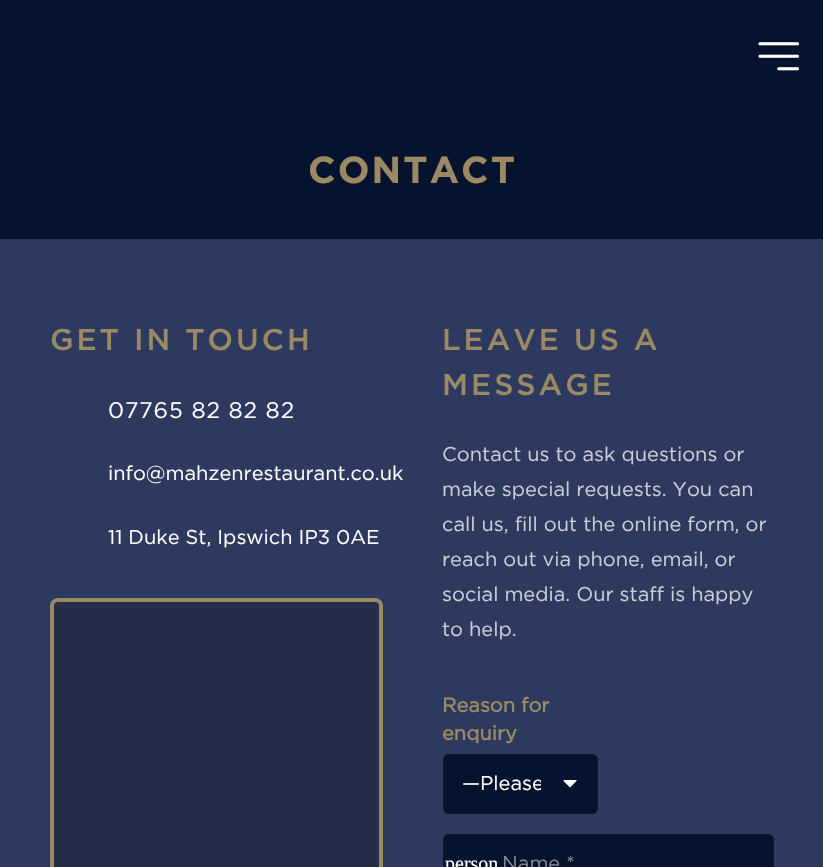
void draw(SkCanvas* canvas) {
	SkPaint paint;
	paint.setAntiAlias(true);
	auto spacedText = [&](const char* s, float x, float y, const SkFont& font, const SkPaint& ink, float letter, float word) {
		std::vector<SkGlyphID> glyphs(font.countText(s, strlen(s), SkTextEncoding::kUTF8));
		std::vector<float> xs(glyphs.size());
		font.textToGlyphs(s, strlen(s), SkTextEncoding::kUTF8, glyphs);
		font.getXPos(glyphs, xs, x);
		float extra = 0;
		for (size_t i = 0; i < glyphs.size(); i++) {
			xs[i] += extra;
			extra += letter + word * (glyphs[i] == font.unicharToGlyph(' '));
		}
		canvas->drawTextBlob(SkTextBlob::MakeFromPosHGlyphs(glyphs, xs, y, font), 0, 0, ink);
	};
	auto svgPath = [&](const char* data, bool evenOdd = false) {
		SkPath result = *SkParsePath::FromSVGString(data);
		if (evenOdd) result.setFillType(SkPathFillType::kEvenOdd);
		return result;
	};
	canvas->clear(0xff06132e);
	canvas->drawImageRect(SkImages::DeferredFromEncodedData(SkData::MakeFromFileName("img1.png")), SkRect::MakeXYWH(758, 42, 41, 29), SkSamplingOptions());
	SkFont f1(fontMgr->matchFamilyStyle("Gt", SkFontStyle::Bold()), 37.5);
	f1.setSubpixel(true);
	paint.setColor(0xff9a8963);
	spacedText("CONTACT", 308, 183, f1, paint, 2, 0);
	paint.setColor(0xff2d395e);
	canvas->drawRect(SkRect::MakeXYWH(0, 239, 823, 628), paint);
	SkFont f2(fontMgr->matchFamilyStyle("Gt", SkFontStyle(500, SkFontStyle::kNormal_Width, SkFontStyle::kUpright_Slant)), 30);
	f2.setSubpixel(true);
	paint.setColor(0xff9a8963);
	spacedText("GET IN TOUCH", 50, 350, f2, paint, 3, 0);
	SkFont f3(fontMgr->matchFamilyStyle("Gt", SkFontStyle::Normal()), 22.5);
	f3.setSubpixel(true);
	paint.setColor(0xffffffff);
	spacedText("07765 82 82 82", 108, 418, f3, paint, 0.9, 0);
	SkFont f4(fontMgr->matchFamilyStyle("Gt", SkFontStyle::Normal()), 20);
	f4.setSubpixel(true);
	canvas->drawString("info@mahzenrestaurant.co.uk", 108, 480, f4, paint);
	canvas->drawString("11 Duke St, Ipswich IP3 0AE", 108, 544, f4, paint);
	paint.setColor(0xff242e4b);
	canvas->drawRoundRect(SkRect::MakeXYWH(52, 600, 329, 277), 6, 6, paint);
	paint.setStroke(true);
	paint.setStrokeWidth(4);
	paint.setColor(0xff9a8963);
	canvas->drawRoundRect(SkRect::MakeXYWH(52, 600, 329, 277), 6, 6, paint);
	paint.setStroke(false);
	spacedText("LEAVE US A", 442, 350, f2, paint, 3, 0);
	spacedText("MESSAGE", 442, 395, f2, paint, 3, 0);
	paint.setColor(0xffccced7);
	canvas->drawString("Contact us to ask questions or", 442, 461, f4, paint);
	canvas->drawString("make special requests. You can", 442, 496, f4, paint);
	canvas->drawString("call us, fill out the online form, or", 442, 531, f4, paint);
	canvas->drawString("reach out via phone, email, or", 442, 566, f4, paint);
	canvas->drawString("social media. Our staff is happy", 442, 601, f4, paint);
	canvas->drawString("to help.", 442, 636, f4, paint);
	SkFont f5(fontMgr->matchFamilyStyle("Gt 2", SkFontStyle::Bold()), 20);
	f5.setSubpixel(true);
	paint.setColor(0xff9a8963);
	canvas->drawString("Reason for", 442, 712, f5, paint);
	canvas->drawString("enquiry", 442, 740, f5, paint);
	paint.setColor(0xff06132e);
	canvas->drawRoundRect(SkRect::MakeXYWH(443, 754, 155, 60), 6, 6, paint);
	paint.setColor(0x14000000);
	canvas->drawPath(svgPath("M448 755H592C595 755 598 758 598 761V760C598 757 595 754 592 754H449C447 754 445 755 444 757C445 756 447 755 448 755Z"), paint);
	canvas->save();
	canvas->clipRect(SkRect::MakeXYWH(463, 754, 78, 60));
	paint.setColor(0xffffffff);
	canvas->drawString("—Please", 462, 790, f4, paint);
	canvas->restore();
	canvas->drawPath(svgPath("M565 780C564 780 563.5 780.5 563 780.5L570 787.5L577 780.5C576 780 575 780 573.5 780Z"), paint);
	paint.setColor(0xff06132e);
	canvas->drawRoundRect(SkRect::MakeXYWH(443, 834, 331, 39), 6, 6, paint);
	SkFont f6(fontMgr->matchFamilyStyle("Liberation Serif", SkFontStyle::Normal()), 20);
	f6.setSubpixel(true);
	paint.setColor(0xffffffff);
	canvas->drawString("person", 445, 870, f6, paint);
	paint.setColor(0x14000000);
	canvas->drawPath(svgPath("M448 835H768C771 835 774 838 774 841V840C774 837 771 834 768 834H449C447 834 445 835 444 837C445 836 447 835 448 835Z"), paint);
	paint.setColor(0xff838997);
	canvas->drawString("Name *", 502, 870, f4, paint);
}
